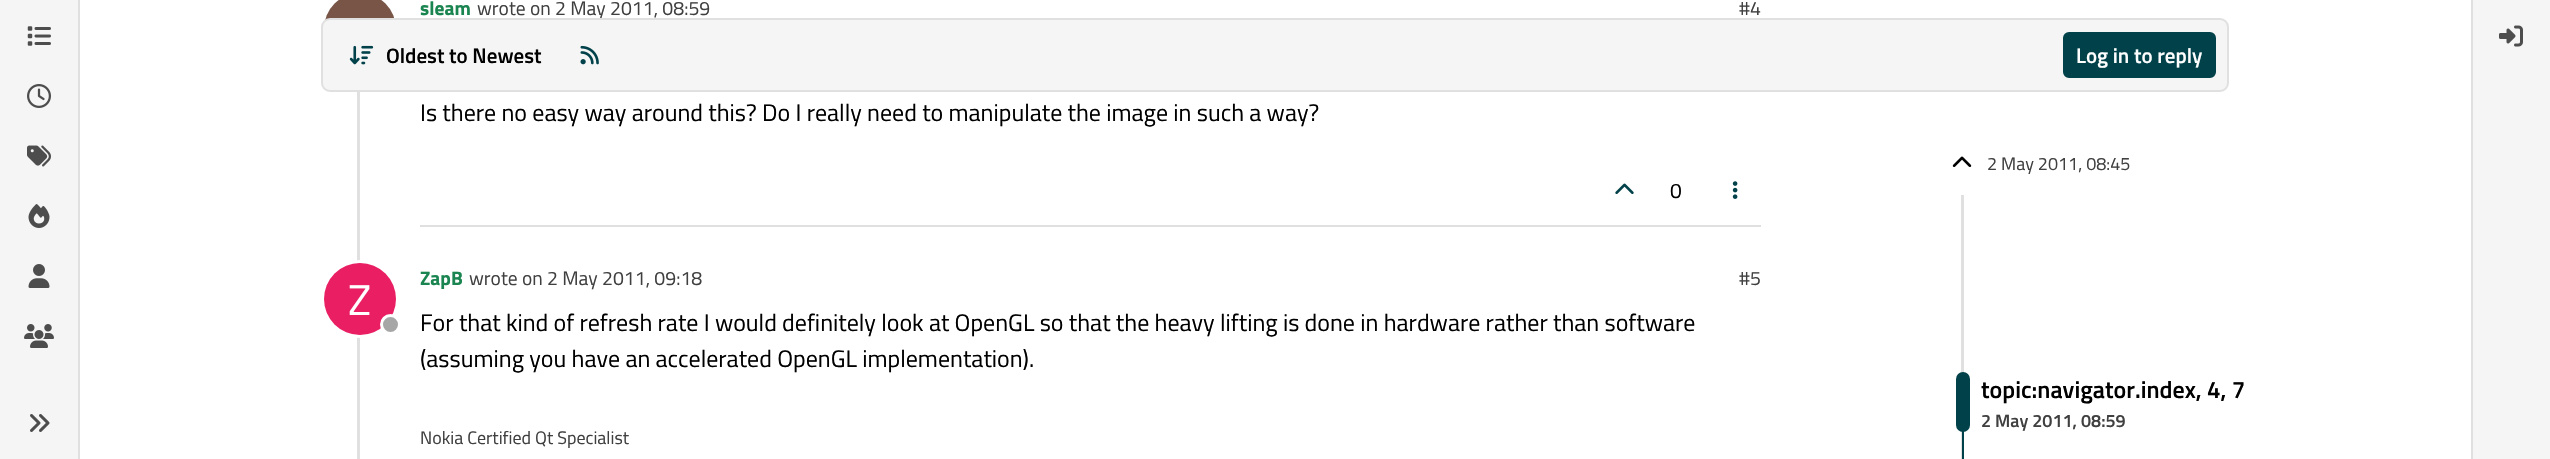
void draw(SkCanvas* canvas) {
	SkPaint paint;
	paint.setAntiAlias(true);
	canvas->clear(0xffffffff);
	paint.setColor(0xfff5f5f5);
	canvas->drawRect(SkRect::MakeXYWH(0, 0, 78, 459), paint);
	paint.setColor(0xffe0e0e0);
	canvas->drawRect(SkRect::MakeXYWH(78, 0, 2, 459), paint);
	canvas->drawImageRect(SkImages::DeferredFromEncodedData(SkData::MakeFromFileName("img1.png")), SkRect::MakeXYWH(27, 26, 24, 20), SkSamplingOptions());
	canvas->drawImageRect(SkImages::DeferredFromEncodedData(SkData::MakeFromFileName("img2.png")), SkRect::MakeXYWH(27, 84, 24, 24), SkSamplingOptions());
	canvas->drawImageRect(SkImages::DeferredFromEncodedData(SkData::MakeFromFileName("img3.png")), SkRect::MakeXYWH(27, 145, 24, 22), SkSamplingOptions());
	canvas->drawImageRect(SkImages::DeferredFromEncodedData(SkData::MakeFromFileName("img4.png")), SkRect::MakeXYWH(28, 204, 22, 24), SkSamplingOptions());
	canvas->drawImageRect(SkImages::DeferredFromEncodedData(SkData::MakeFromFileName("img5.png")), SkRect::MakeXYWH(28, 264, 22, 24), SkSamplingOptions());
	canvas->drawImageRect(SkImages::DeferredFromEncodedData(SkData::MakeFromFileName("img6.png")), SkRect::MakeXYWH(24, 324, 30, 24), SkSamplingOptions());
	canvas->drawImageRect(SkImages::DeferredFromEncodedData(SkData::MakeFromFileName("img7.png")), SkRect::MakeXYWH(30, 414, 20, 18), SkSamplingOptions());
	canvas->drawRect(SkRect::MakeXYWH(357, 92, 3, 367), paint);
	paint.setColor(0xff795548);
	canvas->drawCircle(360, 29, 36, paint);
	SkFont f1(fontMgr->matchFamilyStyle("Titillium Web", SkFontStyle::Bold()), 19.5);
	f1.setSubpixel(true);
	paint.setColor(0xff1a8550);
	canvas->drawString("sleam", 420, 15, f1, paint);
	SkFont f2(fontMgr->matchFamilyStyle("Titillium Web", SkFontStyle::Normal()), 19.5);
	f2.setSubpixel(true);
	paint.setColor(0xff404040);
	canvas->drawString("wrote on 2 May 2011, 08:59", 477, 15, f2, paint);
	canvas->drawString("#4", 1739, 15, f2, paint);
	SkFont f3(fontMgr->matchFamilyStyle("Titillium Web", SkFontStyle::Normal()), 24);
	f3.setSubpixel(true);
	paint.setColor(0xff000000);
	canvas->drawString("Is there no easy way around this? Do I really need to manipulate the image in such a way?", 420, 121, f3, paint);
	paint.setColor(0xffe0e0e0);
	canvas->drawRect(SkRect::MakeXYWH(420, 225, 1341, 2), paint);
	canvas->drawImageRect(SkImages::DeferredFromEncodedData(SkData::MakeFromFileName("img8.png")), SkRect::MakeXYWH(1615, 183, 19, 11), SkSamplingOptions());
	SkFont f4(fontMgr->matchFamilyStyle("Titillium Web", SkFontStyle::Normal()), 21);
	f4.setSubpixel(true);
	paint.setColor(0xff000000);
	canvas->drawString("0", 1670, 198, f4, paint);
	canvas->drawImageRect(SkImages::DeferredFromEncodedData(SkData::MakeFromFileName("img9.png")), SkRect::MakeXYWH(1732, 181, 6, 18), SkSamplingOptions());
	paint.setStroke(true);
	paint.setStrokeWidth(3);
	paint.setColor(0xffffffff);
	canvas->drawCircle(360, 299, 37.5, paint);
	paint.setStroke(false);
	paint.setColor(0xffe91e63);
	canvas->drawCircle(360, 299, 36, paint);
	SkFont f5(fontMgr->matchFamilyStyle("Titillium Web", SkFontStyle::Normal()), 43);
	f5.setSubpixel(true);
	paint.setColor(0xffffffff);
	canvas->drawString("Z", 348, 315, f5, paint);
	paint.setColor(0xffa6a6a6);
	canvas->drawCircle(390.5, 324.5, 9, paint);
	paint.setStroke(true);
	paint.setColor(0xffffffff);
	canvas->drawCircle(390.5, 324.5, 9, paint);
	paint.setStroke(false);
	paint.setColor(0xff1a8550);
	canvas->drawString("ZapB", 420, 285, f1, paint);
	paint.setColor(0xff404040);
	canvas->drawString("wrote on 2 May 2011, 09:18", 469, 285, f2, paint);
	canvas->drawString("#5", 1739, 285, f2, paint);
	paint.setColor(0xff000000);
	canvas->drawString("For that kind of refresh rate I would definitely look at OpenGL so that the heavy lifting is done in hardware rather than software", 420, 331, f3, paint);
	canvas->drawString("(assuming you have an accelerated OpenGL implementation).", 420, 367, f3, paint);
	SkFont f6(fontMgr->matchFamilyStyle("Titillium Web", SkFontStyle::Normal()), 18);
	f6.setSubpixel(true);
	paint.setColor(0xff404040);
	canvas->drawString("Nokia Certified Qt Specialist", 420, 444, f6, paint);
	canvas->drawImageRect(SkImages::DeferredFromEncodedData(SkData::MakeFromFileName("img10.png")), SkRect::MakeXYWH(1952, 156, 20, 11), SkSamplingOptions());
	canvas->drawString("2 May 2011, 08:45", 1987, 170, f6, paint);
	paint.setColor(0xffe0e0e0);
	canvas->drawRect(SkRect::MakeXYWH(1961, 195, 3, 264), paint);
	paint.setColor(0xff00414a);
	canvas->drawRoundRect(SkRect::MakeXYWH(1956, 372, 14, 60), 7, 7, paint);
	SkFont f7(fontMgr->matchFamilyStyle("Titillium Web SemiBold", SkFontStyle(600, SkFontStyle::kNormal_Width, SkFontStyle::kUpright_Slant)), 24);
	f7.setSubpixel(true);
	paint.setColor(0xff000000);
	canvas->drawString("topic:navigator.index, 4, 7", 1981, 398, f7, paint);
	SkFont f8(fontMgr->matchFamilyStyle("Titillium Web SemiBold", SkFontStyle(600, SkFontStyle::kNormal_Width, SkFontStyle::kUpright_Slant)), 18);
	f8.setSubpixel(true);
	paint.setColor(0xff404040);
	canvas->drawString("2 May 2011, 08:59", 1981, 427, f8, paint);
	paint.setColor(0xff00414a);
	canvas->drawRect(SkRect::MakeXYWH(1962, 431, 2, 28), paint);
	paint.setColor(0xfff5f5f5);
	canvas->drawRoundRect(SkRect::MakeXYWH(322, 19, 1906, 72), 8, 8, paint);
	paint.setStroke(true);
	paint.setStrokeWidth(2);
	paint.setColor(0xffe0e0e0);
	canvas->drawRoundRect(SkRect::MakeXYWH(322, 19, 1906, 72), 8, 8, paint);
	canvas->drawImageRect(SkImages::DeferredFromEncodedData(SkData::MakeFromFileName("img11.png")), SkRect::MakeXYWH(349, 45, 25, 20), SkSamplingOptions());
	SkFont f9(fontMgr->matchFamilyStyle("Titillium Web SemiBold", SkFontStyle(600, SkFontStyle::kNormal_Width, SkFontStyle::kUpright_Slant)), 21);
	f9.setSubpixel(true);
	paint.setStroke(false);
	paint.setColor(0xff000000);
	canvas->drawString("Oldest to Newest", 386, 63, f9, paint);
	canvas->drawImageRect(SkImages::DeferredFromEncodedData(SkData::MakeFromFileName("img12.png")), SkRect::MakeXYWH(580, 45, 19, 20), SkSamplingOptions());
	paint.setColor(0xff00414a);
	canvas->drawRoundRect(SkRect::MakeXYWH(2064, 33, 151, 44), 5, 5, paint);
	paint.setStroke(true);
	canvas->drawRoundRect(SkRect::MakeXYWH(2064, 33, 151, 44), 5, 5, paint);
	paint.setStroke(false);
	paint.setColor(0xffffffff);
	canvas->drawString("Log in to reply", 2076, 63, f9, paint);
	paint.setColor(0xfff5f5f5);
	canvas->drawRect(SkRect::MakeXYWH(2473, 0, 77, 459), paint);
	paint.setColor(0xffe0e0e0);
	canvas->drawRect(SkRect::MakeXYWH(2471, 0, 2, 459), paint);
	canvas->drawImageRect(SkImages::DeferredFromEncodedData(SkData::MakeFromFileName("img13.png")), SkRect::MakeXYWH(2499, 25, 24, 22), SkSamplingOptions());
}
